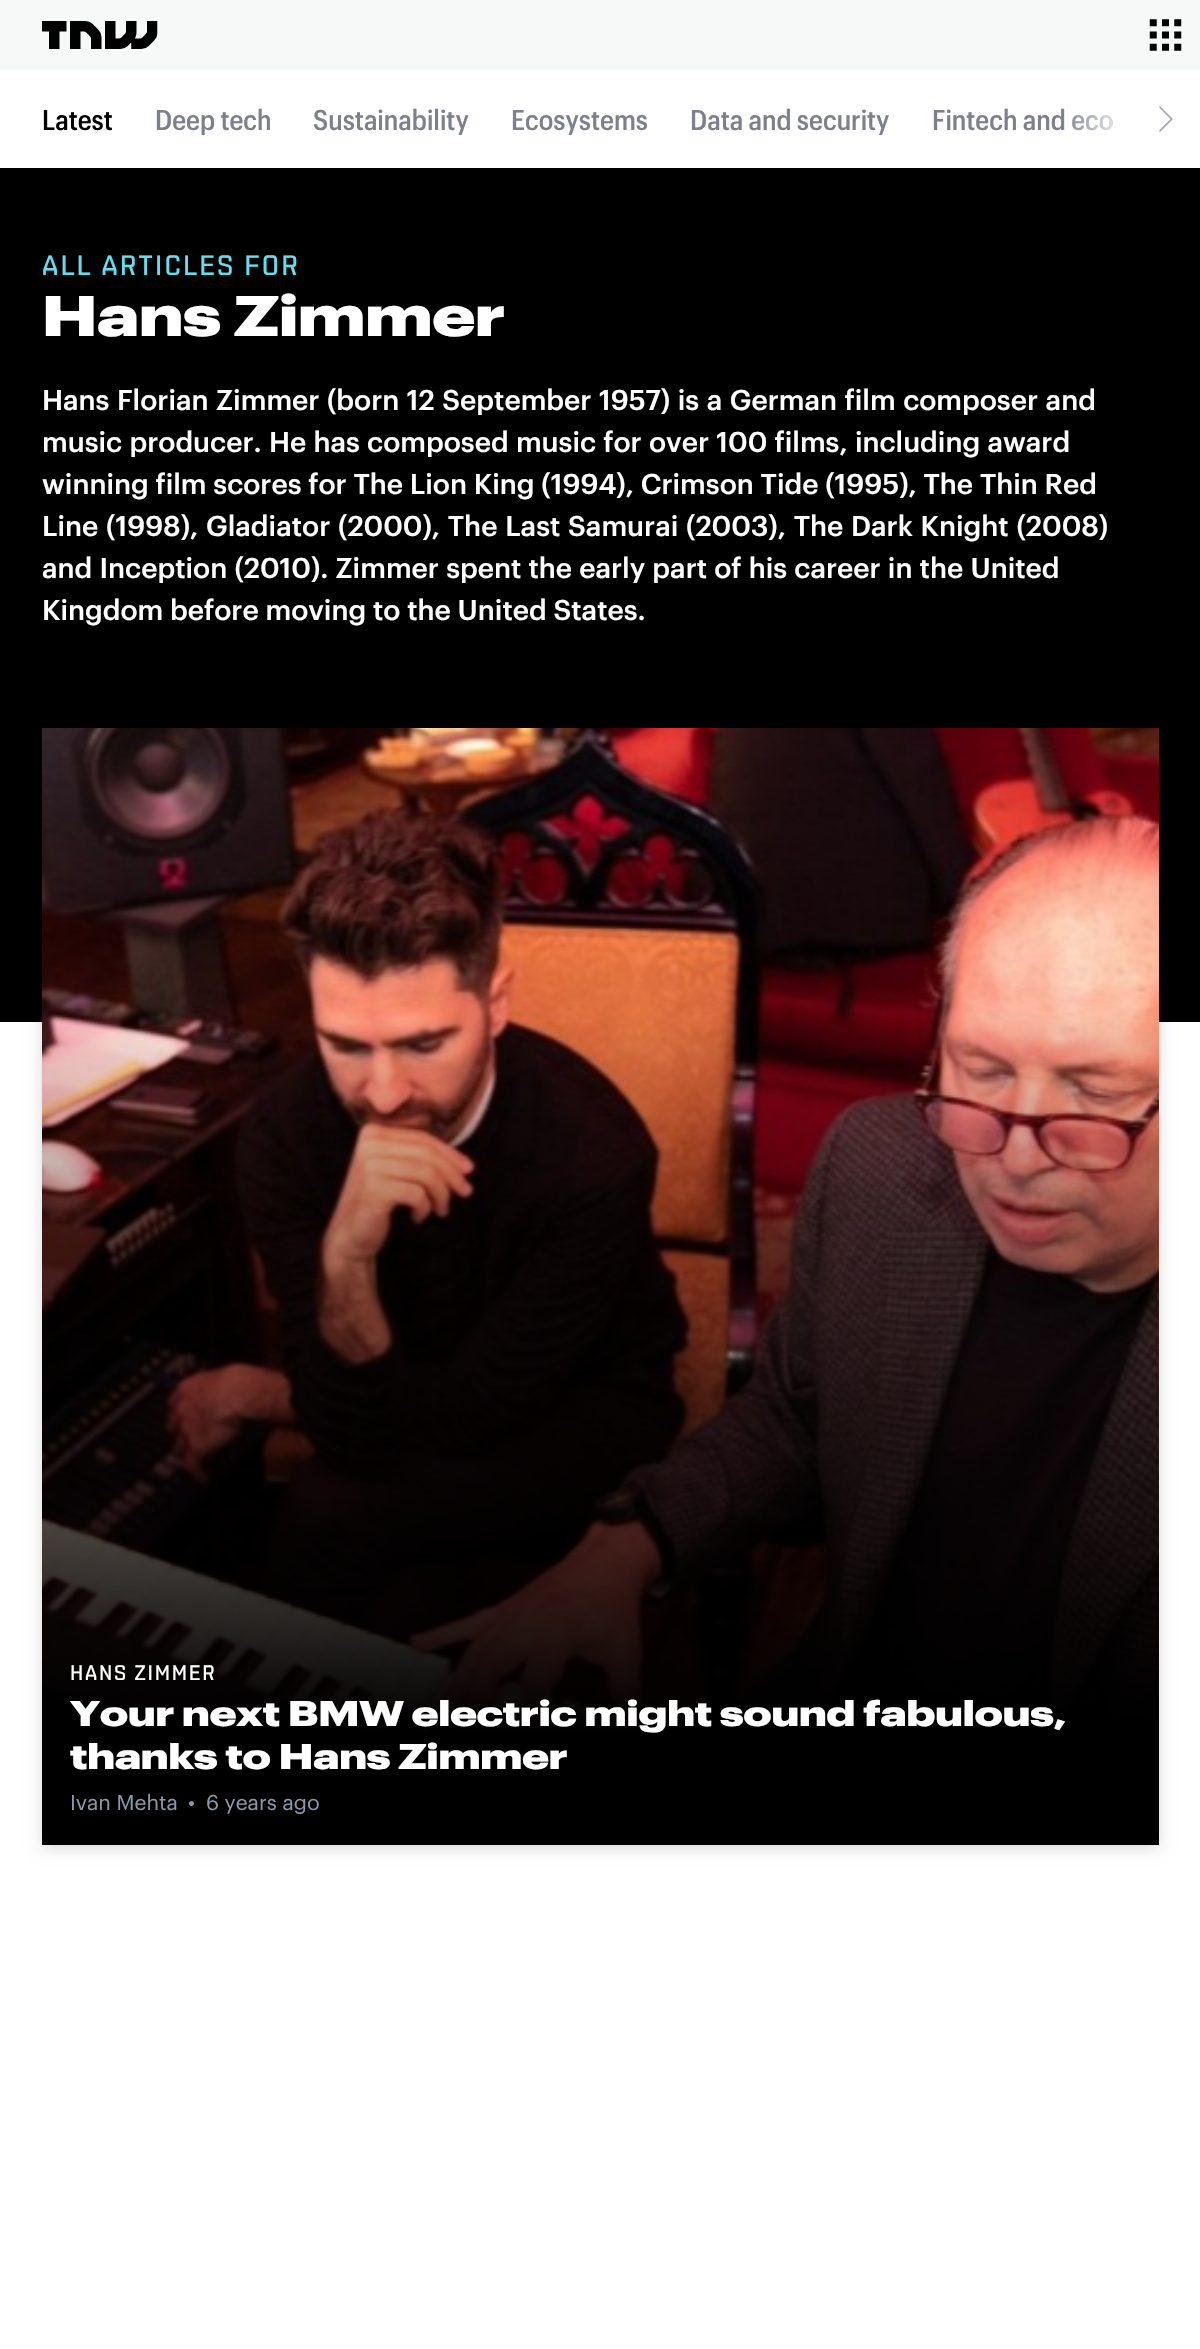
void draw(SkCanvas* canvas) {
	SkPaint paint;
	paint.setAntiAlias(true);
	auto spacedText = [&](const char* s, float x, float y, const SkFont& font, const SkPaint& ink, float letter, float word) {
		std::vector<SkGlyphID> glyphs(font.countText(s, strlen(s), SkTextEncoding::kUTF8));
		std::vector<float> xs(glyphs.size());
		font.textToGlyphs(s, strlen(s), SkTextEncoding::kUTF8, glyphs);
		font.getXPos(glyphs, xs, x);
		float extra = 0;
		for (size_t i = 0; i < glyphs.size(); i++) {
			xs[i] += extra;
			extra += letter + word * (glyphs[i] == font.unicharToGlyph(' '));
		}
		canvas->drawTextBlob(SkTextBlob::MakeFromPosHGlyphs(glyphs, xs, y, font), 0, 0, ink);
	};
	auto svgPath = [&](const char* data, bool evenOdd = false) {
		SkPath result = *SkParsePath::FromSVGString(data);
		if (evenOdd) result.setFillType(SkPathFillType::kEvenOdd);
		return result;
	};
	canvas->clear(0xffffffff);
	paint.setColor(0xfff7f8f8);
	canvas->drawRect(SkRect::MakeXYWH(0, 0, 1200, 70), paint);
	canvas->drawImageRect(SkImages::DeferredFromEncodedData(SkData::MakeFromFileName("img1.png")), SkRect::MakeXYWH(1149, 19, 33, 32), SkSamplingOptions());
	canvas->drawImageRect(SkImages::DeferredFromEncodedData(SkData::MakeFromFileName("img2.png")), SkRect::MakeXYWH(42, 21, 116, 28), SkSamplingOptions());
	SkFont f1(fontMgr->matchFamilyStyle("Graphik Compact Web", SkFontStyle(500, SkFontStyle::kNormal_Width, SkFontStyle::kUpright_Slant)), 28);
	f1.setSubpixel(true);
	paint.setColor(0xff000000);
	canvas->drawString("Latest", 42, 130, f1, paint);
	paint.setColor(0xff7c808c);
	canvas->drawString("Deep tech", 155, 130, f1, paint);
	canvas->drawString("Sustainability", 313, 130, f1, paint);
	canvas->drawString("Ecosystems", 511, 130, f1, paint);
	canvas->drawString("Data and security", 690, 130, f1, paint);
	canvas->drawString("Fintech and eco", 932, 130, f1, paint);
	{
		const SkColor colors[] = {0x00ffffff, 0xffffffff};
		const float stops[] = {0, 0.5};
		const SkPoint ends[] = {{1061, 119}, {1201, 119}};
		paint.setShader(SkGradientShader::MakeLinear(ends, colors, stops, 2, SkTileMode::kClamp));
		paint.setAlpha(255);
	}
	canvas->drawRect(SkRect::MakeXYWH(1063, 109, 49, 22), paint);
	paint.setShader(nullptr);
	paint.setColor(0xffa7aab2);
	canvas->drawPath(svgPath("M1159.5 105.5L1173 119H1170.5L1159.5 108ZM1173 119L1159.5 132.5V130L1170.5 119Z"), paint);
	paint.setColor(0xff000000);
	canvas->drawRect(SkRect::MakeXYWH(0, 168, 1200, 854), paint);
	SkFont f2(fontMgr->matchFamilyStyle("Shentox", SkFontStyle(500, SkFontStyle::kNormal_Width, SkFontStyle::kUpright_Slant)), 28);
	f2.setSubpixel(true);
	paint.setColor(0xff66ddee);
	spacedText("ALL ARTICLES FOR", 42, 275, f2, paint, 2.25, 0);
	SkFont f3(fontMgr->matchFamilyStyle("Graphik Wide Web", SkFontStyle(800, SkFontStyle::kNormal_Width, SkFontStyle::kUpright_Slant)), 56);
	f3.setSubpixel(true);
	paint.setColor(0xffffffff);
	canvas->drawString("Hans Zimmer", 42, 336, f3, paint);
	SkFont f4(fontMgr->matchFamilyStyle("Graphik", SkFontStyle(500, SkFontStyle::kNormal_Width, SkFontStyle::kUpright_Slant)), 28);
	f4.setSubpixel(true);
	spacedText("Hans Florian Zimmer (born 12 September 1957) is a German film composer and", 42, 410, f4, paint, 0, 0.75);
	spacedText("music producer. He has composed music for over 100 films, including award", 42, 452, f4, paint, 0, 0.5);
	canvas->drawString("winning film scores for The Lion King (1994), Crimson Tide (1995), The Thin Red", 42, 494, f4, paint);
	spacedText("Line (1998), Gladiator (2000), The Last Samurai (2003), The Dark Knight (2008)", 42, 536, f4, paint, 0, 1);
	spacedText("and Inception (2010). Zimmer spent the early part of his career in the United", 42, 578, f4, paint, 0, 0.4);
	canvas->drawString("Kingdom before moving to the United States.", 42, 620, f4, paint);
	paint.setColor(0x26000000);
	paint.setMaskFilter(SkMaskFilter::MakeBlur(kNormal_SkBlurStyle, 7));
	canvas->drawRect(SkRect::MakeXYWH(42, 732, 1117, 1116), paint);
	paint.setMaskFilter(nullptr);
	canvas->drawImageRect(SkImages::DeferredFromEncodedData(SkData::MakeFromFileName("img3.png")), SkRect::MakeXYWH(42, 728, 1117, 1117), SkSamplingOptions());
	SkFont f5(fontMgr->matchFamilyStyle("Shentox", SkFontStyle(500, SkFontStyle::kNormal_Width, SkFontStyle::kUpright_Slant)), 21);
	f5.setSubpixel(true);
	paint.setColor(0xffffffff);
	spacedText("HANS ZIMMER", 70, 1680, f5, paint, 1.75, 0);
	SkFont f6(fontMgr->matchFamilyStyle("Graphik Wide Web", SkFontStyle(800, SkFontStyle::kNormal_Width, SkFontStyle::kUpright_Slant)), 35);
	f6.setSubpixel(true);
	spacedText("Your next BMW electric might sound fabulous,", 70, 1726, f6, paint, -0.05, 0);
	spacedText("thanks to Hans Zimmer", 70, 1769, f6, paint, -0.05, 0);
	SkFont f7(fontMgr->matchFamilyStyle("Graphik", SkFontStyle::Normal()), 21);
	f7.setSubpixel(true);
	paint.setColor(0xff8899aa);
	canvas->drawString("Ivan Mehta", 70, 1810, f7, paint);
	canvas->drawString("•", 188, 1810, f7, paint);
	canvas->drawString("6 years ago", 206, 1810, f7, paint);
}
